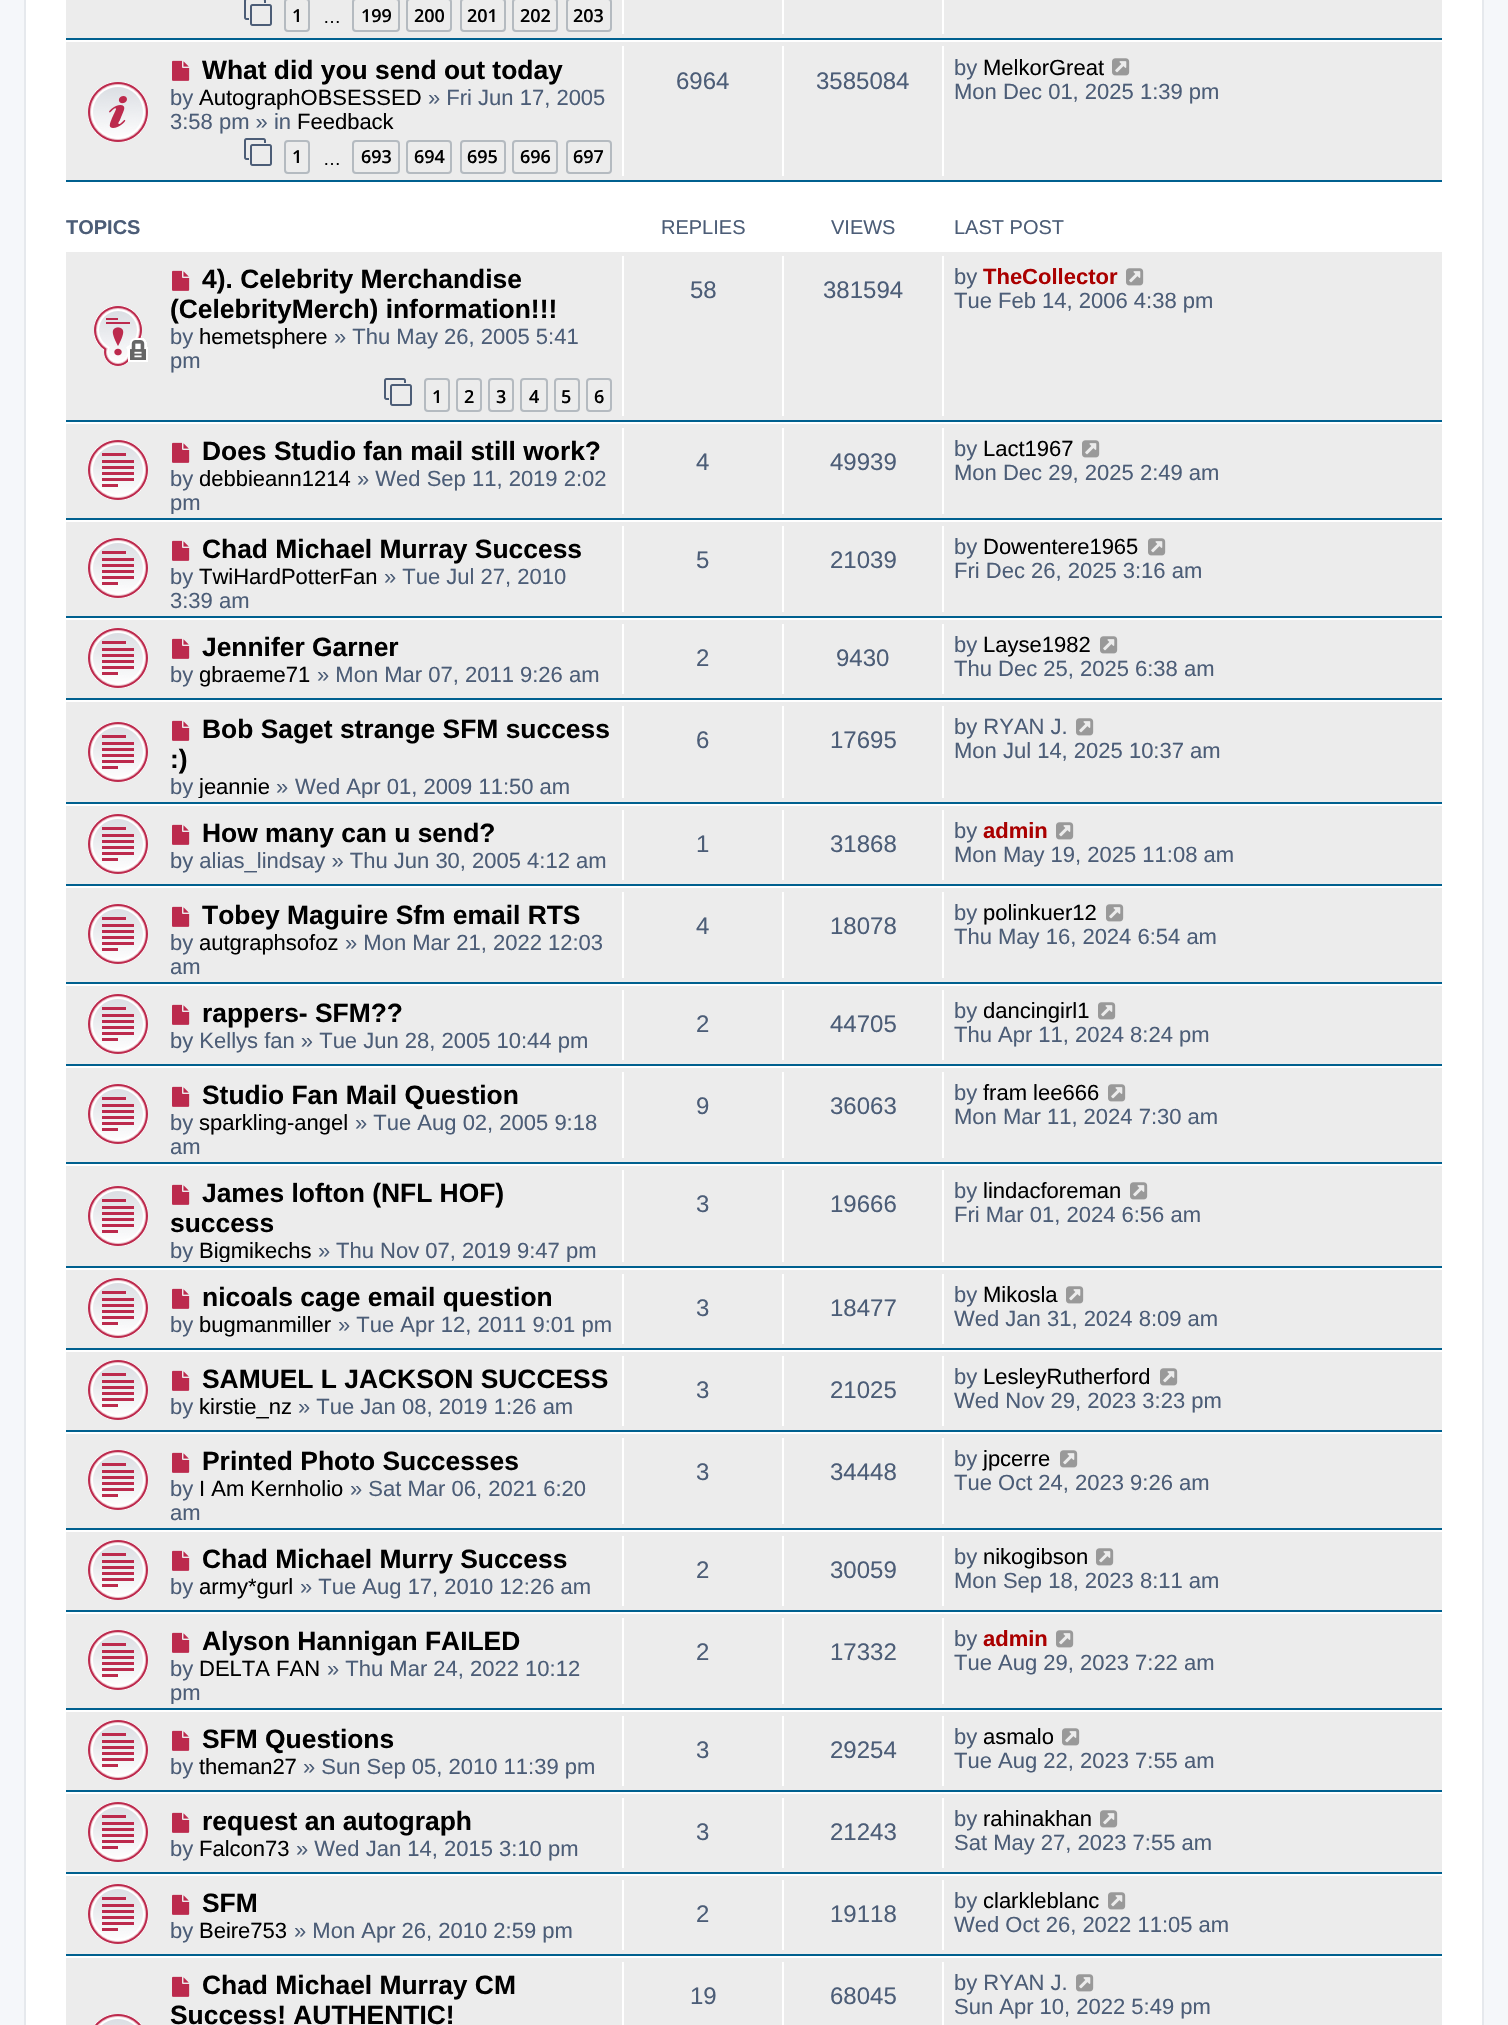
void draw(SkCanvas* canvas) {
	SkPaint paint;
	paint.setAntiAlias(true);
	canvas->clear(0xfff5f7fa);
	paint.setColor(0xffffffff);
	canvas->drawRect(SkRect::MakeXYWH(25, -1, 1458, 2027), paint);
	paint.setStroke(true);
	paint.setStrokeWidth(2);
	paint.setColor(0xffe6e9ed);
	canvas->drawRect(SkRect::MakeXYWH(25, -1, 1458, 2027), paint);
	paint.setStroke(false);
	paint.setColor(0xffececec);
	canvas->drawRect(SkRect::MakeXYWH(66, 0, 1376, 38), paint);
	paint.setColor(0xff00608f);
	canvas->drawRect(SkRect::MakeXYWH(66, 38, 1376, 2), paint);
	canvas->drawImageRect(SkImages::DeferredFromEncodedData(SkData::MakeFromFileName("img1.png")), SkRect::MakeXYWH(244, 0, 28, 26), SkSamplingOptions());
	paint.setStroke(true);
	paint.setColor(0xffb4bac0);
	canvas->drawRoundRect(SkRect::MakeXYWH(285, -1, 24, 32), 3, 3, paint);
	SkFont f1(fontMgr->matchFamilyStyle("Open Sans", SkFontStyle(600, SkFontStyle::kNormal_Width, SkFontStyle::kUpright_Slant)), 18);
	f1.setSubpixel(true);
	paint.setStroke(false);
	paint.setColor(0xff000000);
	canvas->drawString("1", 292, 22, f1, paint);
	SkFont f2(fontMgr->matchFamilyStyle("Liberation Sans", SkFontStyle::Normal()), 18);
	f2.setSubpixel(true);
	canvas->drawString("…", 323, 23, f2, paint);
	paint.setStroke(true);
	paint.setColor(0xffb4bac0);
	canvas->drawRoundRect(SkRect::MakeXYWH(353, -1, 46, 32), 3, 3, paint);
	paint.setStroke(false);
	paint.setColor(0xff000000);
	canvas->drawString("199", 361, 22, f1, paint);
	paint.setStroke(true);
	paint.setColor(0xffb4bac0);
	canvas->drawRoundRect(SkRect::MakeXYWH(407, -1, 44, 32), 3, 3, paint);
	paint.setStroke(false);
	paint.setColor(0xff000000);
	canvas->drawString("200", 414, 22, f1, paint);
	paint.setStroke(true);
	paint.setColor(0xffb4bac0);
	canvas->drawRoundRect(SkRect::MakeXYWH(461, -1, 44, 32), 3, 3, paint);
	paint.setStroke(false);
	paint.setColor(0xff000000);
	canvas->drawString("201", 467, 22, f1, paint);
	paint.setStroke(true);
	paint.setColor(0xffb4bac0);
	canvas->drawRoundRect(SkRect::MakeXYWH(513, -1, 44, 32), 3, 3, paint);
	paint.setStroke(false);
	paint.setColor(0xff000000);
	canvas->drawString("202", 520, 22, f1, paint);
	paint.setStroke(true);
	paint.setColor(0xffb4bac0);
	canvas->drawRoundRect(SkRect::MakeXYWH(567, -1, 44, 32), 3, 3, paint);
	paint.setStroke(false);
	paint.setColor(0xff000000);
	canvas->drawString("203", 573, 22, f1, paint);
	paint.setColor(0xffffffff);
	canvas->drawRect(SkRect::MakeXYWH(622, 0, 2, 34), paint);
	canvas->drawRect(SkRect::MakeXYWH(782, 0, 2, 34), paint);
	canvas->drawRect(SkRect::MakeXYWH(942, 0, 2, 34), paint);
	paint.setColor(0xffececec);
	canvas->drawRect(SkRect::MakeXYWH(66, 42, 1376, 138), paint);
	paint.setColor(0xff00608f);
	canvas->drawRect(SkRect::MakeXYWH(66, 180, 1376, 2), paint);
	canvas->drawImageRect(SkImages::DeferredFromEncodedData(SkData::MakeFromFileName("img2.png")), SkRect::MakeXYWH(88, 82, 60, 60), SkSamplingOptions());
	canvas->drawImageRect(SkImages::DeferredFromEncodedData(SkData::MakeFromFileName("img3.png")), SkRect::MakeXYWH(172, 60, 18, 21), SkSamplingOptions());
	SkFont f3(fontMgr->matchFamilyStyle("Liberation Sans", SkFontStyle::Bold()), 26.4);
	f3.setSubpixel(true);
	paint.setColor(0xff000000);
	canvas->drawString("What did you send out today", 202, 79, f3, paint);
	SkFont f4(fontMgr->matchFamilyStyle("Liberation Sans", SkFontStyle::Normal()), 22);
	f4.setSubpixel(true);
	paint.setColor(0xff4c5d77);
	canvas->drawString("by", 170, 105, f4, paint);
	paint.setColor(0xff000000);
	canvas->drawString("AutographOBSESSED", 199, 105, f4, paint);
	paint.setColor(0xff4c5d77);
	canvas->drawString("» Fri Jun 17, 2005", 428, 105, f4, paint);
	canvas->drawString("3:58 pm » in", 170, 129, f4, paint);
	paint.setColor(0xff000000);
	canvas->drawString("Feedback", 297, 129, f4, paint);
	canvas->drawImageRect(SkImages::DeferredFromEncodedData(SkData::MakeFromFileName("img4.png")), SkRect::MakeXYWH(244, 138, 28, 28), SkSamplingOptions());
	paint.setStroke(true);
	paint.setColor(0xffb4bac0);
	canvas->drawRoundRect(SkRect::MakeXYWH(285, 141, 24, 32), 3, 3, paint);
	paint.setStroke(false);
	paint.setColor(0xff000000);
	canvas->drawString("1", 292, 163, f1, paint);
	canvas->drawString("…", 323, 165, f2, paint);
	paint.setStroke(true);
	paint.setColor(0xffb4bac0);
	canvas->drawRoundRect(SkRect::MakeXYWH(353, 141, 46, 32), 3, 3, paint);
	paint.setStroke(false);
	paint.setColor(0xff000000);
	canvas->drawString("693", 361, 163, f1, paint);
	paint.setStroke(true);
	paint.setColor(0xffb4bac0);
	canvas->drawRoundRect(SkRect::MakeXYWH(407, 141, 44, 32), 3, 3, paint);
	paint.setStroke(false);
	paint.setColor(0xff000000);
	canvas->drawString("694", 414, 163, f1, paint);
	paint.setStroke(true);
	paint.setColor(0xffb4bac0);
	canvas->drawRoundRect(SkRect::MakeXYWH(461, 141, 44, 32), 3, 3, paint);
	paint.setStroke(false);
	paint.setColor(0xff000000);
	canvas->drawString("695", 467, 163, f1, paint);
	paint.setStroke(true);
	paint.setColor(0xffb4bac0);
	canvas->drawRoundRect(SkRect::MakeXYWH(513, 141, 44, 32), 3, 3, paint);
	paint.setStroke(false);
	paint.setColor(0xff000000);
	canvas->drawString("696", 520, 163, f1, paint);
	paint.setStroke(true);
	paint.setColor(0xffb4bac0);
	canvas->drawRoundRect(SkRect::MakeXYWH(567, 141, 44, 32), 3, 3, paint);
	paint.setStroke(false);
	paint.setColor(0xff000000);
	canvas->drawString("697", 573, 163, f1, paint);
	paint.setColor(0xffffffff);
	canvas->drawRect(SkRect::MakeXYWH(622, 46, 2, 130), paint);
	SkFont f5(fontMgr->matchFamilyStyle("Liberation Sans", SkFontStyle::Normal()), 24);
	f5.setSubpixel(true);
	paint.setColor(0xff4c5d77);
	canvas->drawString("6964", 676, 89, f5, paint);
	paint.setColor(0xffffffff);
	canvas->drawRect(SkRect::MakeXYWH(782, 46, 2, 130), paint);
	paint.setColor(0xff4c5d77);
	canvas->drawString("3585084", 816, 89, f5, paint);
	paint.setColor(0xffffffff);
	canvas->drawRect(SkRect::MakeXYWH(942, 46, 2, 130), paint);
	paint.setColor(0xff4c5d77);
	canvas->drawString("by", 954, 75, f4, paint);
	paint.setColor(0xff000000);
	canvas->drawString("MelkorGreat", 983, 75, f4, paint);
	canvas->drawImageRect(SkImages::DeferredFromEncodedData(SkData::MakeFromFileName("img5.png")), SkRect::MakeXYWH(1112, 58, 18, 18), SkSamplingOptions());
	paint.setColor(0xff4c5d77);
	canvas->drawString("Mon Dec 01, 2025 1:39 pm", 954, 99, f4, paint);
	SkFont f6(fontMgr->matchFamilyStyle("Liberation Sans", SkFontStyle::Bold()), 20);
	f6.setSubpixel(true);
	canvas->drawString("TOPICS", 66, 234, f6, paint);
	SkFont f7(fontMgr->matchFamilyStyle("Liberation Sans", SkFontStyle::Normal()), 20);
	f7.setSubpixel(true);
	canvas->drawString("REPLIES", 661, 234, f7, paint);
	canvas->drawString("VIEWS", 831, 234, f7, paint);
	canvas->drawString("LAST POST", 954, 234, f7, paint);
	paint.setColor(0xffececec);
	canvas->drawRect(SkRect::MakeXYWH(66, 252, 1376, 168), paint);
	paint.setColor(0xff00608f);
	canvas->drawRect(SkRect::MakeXYWH(66, 420, 1376, 2), paint);
	canvas->drawImageRect(SkImages::DeferredFromEncodedData(SkData::MakeFromFileName("img6.png")), SkRect::MakeXYWH(94, 306, 54, 60), SkSamplingOptions());
	canvas->drawImageRect(SkImages::DeferredFromEncodedData(SkData::MakeFromFileName("img3.png")), SkRect::MakeXYWH(172, 270, 18, 21), SkSamplingOptions());
	paint.setColor(0xff000000);
	canvas->drawString("4). Celebrity Merchandise", 202, 288, f3, paint);
	canvas->drawString("(CelebrityMerch) information!!!", 170, 318, f3, paint);
	paint.setColor(0xff4c5d77);
	canvas->drawString("by", 170, 344, f4, paint);
	paint.setColor(0xff000000);
	canvas->drawString("hemetsphere", 199, 344, f4, paint);
	paint.setColor(0xff4c5d77);
	canvas->drawString("» Thu May 26, 2005 5:41", 334, 344, f4, paint);
	canvas->drawString("pm", 170, 368, f4, paint);
	canvas->drawImageRect(SkImages::DeferredFromEncodedData(SkData::MakeFromFileName("img4.png")), SkRect::MakeXYWH(384, 378, 28, 28), SkSamplingOptions());
	paint.setStroke(true);
	paint.setColor(0xffb4bac0);
	canvas->drawRoundRect(SkRect::MakeXYWH(425, 379, 24, 32), 3, 3, paint);
	paint.setStroke(false);
	paint.setColor(0xff000000);
	canvas->drawString("1", 432, 403, f1, paint);
	paint.setStroke(true);
	paint.setColor(0xffb4bac0);
	canvas->drawRoundRect(SkRect::MakeXYWH(457, 379, 24, 32), 3, 3, paint);
	paint.setStroke(false);
	paint.setColor(0xff000000);
	canvas->drawString("2", 464, 403, f1, paint);
	paint.setStroke(true);
	paint.setColor(0xffb4bac0);
	canvas->drawRoundRect(SkRect::MakeXYWH(489, 379, 24, 32), 3, 3, paint);
	paint.setStroke(false);
	paint.setColor(0xff000000);
	canvas->drawString("3", 496, 403, f1, paint);
	paint.setStroke(true);
	paint.setColor(0xffb4bac0);
	canvas->drawRoundRect(SkRect::MakeXYWH(521, 379, 26, 32), 3, 3, paint);
	paint.setStroke(false);
	paint.setColor(0xff000000);
	canvas->drawString("4", 529, 403, f1, paint);
	paint.setStroke(true);
	paint.setColor(0xffb4bac0);
	canvas->drawRoundRect(SkRect::MakeXYWH(555, 379, 24, 32), 3, 3, paint);
	paint.setStroke(false);
	paint.setColor(0xff000000);
	canvas->drawString("5", 561, 403, f1, paint);
	paint.setStroke(true);
	paint.setColor(0xffb4bac0);
	canvas->drawRoundRect(SkRect::MakeXYWH(587, 379, 24, 32), 3, 3, paint);
	paint.setStroke(false);
	paint.setColor(0xff000000);
	canvas->drawString("6", 594, 403, f1, paint);
	paint.setColor(0xffffffff);
	canvas->drawRect(SkRect::MakeXYWH(622, 256, 2, 160), paint);
	paint.setColor(0xff4c5d77);
	canvas->drawString("58", 690, 298, f5, paint);
	paint.setColor(0xffffffff);
	canvas->drawRect(SkRect::MakeXYWH(782, 256, 2, 160), paint);
	paint.setColor(0xff4c5d77);
	canvas->drawString("381594", 823, 298, f5, paint);
	paint.setColor(0xffffffff);
	canvas->drawRect(SkRect::MakeXYWH(942, 256, 2, 160), paint);
	paint.setColor(0xff4c5d77);
	canvas->drawString("by", 954, 284, f4, paint);
	SkFont f8(fontMgr->matchFamilyStyle("Liberation Sans", SkFontStyle::Bold()), 22);
	f8.setSubpixel(true);
	paint.setColor(0xffaa0000);
	canvas->drawString("TheCollector", 983, 284, f8, paint);
	canvas->drawImageRect(SkImages::DeferredFromEncodedData(SkData::MakeFromFileName("img5.png")), SkRect::MakeXYWH(1126, 268, 18, 18), SkSamplingOptions());
	paint.setColor(0xff4c5d77);
	canvas->drawString("Tue Feb 14, 2006 4:38 pm", 954, 308, f4, paint);
	paint.setColor(0xffececec);
	canvas->drawRect(SkRect::MakeXYWH(66, 424, 1376, 94), paint);
	paint.setColor(0xff00608f);
	canvas->drawRect(SkRect::MakeXYWH(66, 518, 1376, 2), paint);
	canvas->drawImageRect(SkImages::DeferredFromEncodedData(SkData::MakeFromFileName("img7.png")), SkRect::MakeXYWH(88, 440, 60, 60), SkSamplingOptions());
	canvas->drawImageRect(SkImages::DeferredFromEncodedData(SkData::MakeFromFileName("img3.png")), SkRect::MakeXYWH(172, 442, 18, 21), SkSamplingOptions());
	paint.setColor(0xff000000);
	canvas->drawString("Does Studio fan mail still work?", 202, 460, f3, paint);
	paint.setColor(0xff4c5d77);
	canvas->drawString("by", 170, 486, f4, paint);
	paint.setColor(0xff000000);
	canvas->drawString("debbieann1214", 199, 486, f4, paint);
	paint.setColor(0xff4c5d77);
	canvas->drawString("» Wed Sep 11, 2019 2:02", 357, 486, f4, paint);
	canvas->save();
	canvas->clipRect(SkRect::MakeXYWH(66, 428, 1376, 86));
	canvas->drawString("pm", 170, 510, f4, paint);
	canvas->restore();
	paint.setColor(0xffffffff);
	canvas->drawRect(SkRect::MakeXYWH(622, 428, 2, 86), paint);
	paint.setColor(0xff4c5d77);
	canvas->drawString("4", 696, 470, f5, paint);
	paint.setColor(0xffffffff);
	canvas->drawRect(SkRect::MakeXYWH(782, 428, 2, 86), paint);
	paint.setColor(0xff4c5d77);
	canvas->drawString("49939", 830, 470, f5, paint);
	paint.setColor(0xffffffff);
	canvas->drawRect(SkRect::MakeXYWH(942, 428, 2, 86), paint);
	paint.setColor(0xff4c5d77);
	canvas->drawString("by", 954, 456, f4, paint);
	paint.setColor(0xff000000);
	canvas->drawString("Lact1967", 983, 456, f4, paint);
	canvas->drawImageRect(SkImages::DeferredFromEncodedData(SkData::MakeFromFileName("img5.png")), SkRect::MakeXYWH(1082, 440, 18, 18), SkSamplingOptions());
	paint.setColor(0xff4c5d77);
	canvas->drawString("Mon Dec 29, 2025 2:49 am", 954, 480, f4, paint);
	paint.setColor(0xffececec);
	canvas->drawRect(SkRect::MakeXYWH(66, 522, 1376, 94), paint);
	paint.setColor(0xff00608f);
	canvas->drawRect(SkRect::MakeXYWH(66, 616, 1376, 2), paint);
	canvas->drawImageRect(SkImages::DeferredFromEncodedData(SkData::MakeFromFileName("img7.png")), SkRect::MakeXYWH(88, 538, 60, 60), SkSamplingOptions());
	canvas->drawImageRect(SkImages::DeferredFromEncodedData(SkData::MakeFromFileName("img3.png")), SkRect::MakeXYWH(172, 540, 18, 21), SkSamplingOptions());
	paint.setColor(0xff000000);
	canvas->drawString("Chad Michael Murray Success", 202, 558, f3, paint);
	paint.setColor(0xff4c5d77);
	canvas->drawString("by", 170, 584, f4, paint);
	paint.setColor(0xff000000);
	canvas->drawString("TwiHardPotterFan", 199, 584, f4, paint);
	paint.setColor(0xff4c5d77);
	canvas->drawString("» Tue Jul 27, 2010", 384, 584, f4, paint);
	canvas->drawString("3:39 am", 170, 608, f4, paint);
	paint.setColor(0xffffffff);
	canvas->drawRect(SkRect::MakeXYWH(622, 526, 2, 86), paint);
	paint.setColor(0xff4c5d77);
	canvas->drawString("5", 696, 568, f5, paint);
	paint.setColor(0xffffffff);
	canvas->drawRect(SkRect::MakeXYWH(782, 526, 2, 86), paint);
	paint.setColor(0xff4c5d77);
	canvas->drawString("21039", 830, 568, f5, paint);
	paint.setColor(0xffffffff);
	canvas->drawRect(SkRect::MakeXYWH(942, 526, 2, 86), paint);
	paint.setColor(0xff4c5d77);
	canvas->drawString("by", 954, 554, f4, paint);
	paint.setColor(0xff000000);
	canvas->drawString("Dowentere1965", 983, 554, f4, paint);
	canvas->drawImageRect(SkImages::DeferredFromEncodedData(SkData::MakeFromFileName("img5.png")), SkRect::MakeXYWH(1148, 538, 18, 18), SkSamplingOptions());
	paint.setColor(0xff4c5d77);
	canvas->drawString("Fri Dec 26, 2025 3:16 am", 954, 578, f4, paint);
	paint.setColor(0xffececec);
	canvas->drawRect(SkRect::MakeXYWH(66, 620, 1376, 78), paint);
	paint.setColor(0xff00608f);
	canvas->drawRect(SkRect::MakeXYWH(66, 698, 1376, 2), paint);
	canvas->drawImageRect(SkImages::DeferredFromEncodedData(SkData::MakeFromFileName("img7.png")), SkRect::MakeXYWH(88, 628, 60, 60), SkSamplingOptions());
	canvas->drawImageRect(SkImages::DeferredFromEncodedData(SkData::MakeFromFileName("img3.png")), SkRect::MakeXYWH(172, 638, 18, 21), SkSamplingOptions());
	paint.setColor(0xff000000);
	canvas->drawString("Jennifer Garner", 202, 656, f3, paint);
	paint.setColor(0xff4c5d77);
	canvas->drawString("by", 170, 682, f4, paint);
	paint.setColor(0xff000000);
	canvas->drawString("gbraeme71", 199, 682, f4, paint);
	paint.setColor(0xff4c5d77);
	canvas->drawString("» Mon Mar 07, 2011 9:26 am", 317, 682, f4, paint);
	paint.setColor(0xffffffff);
	canvas->drawRect(SkRect::MakeXYWH(622, 624, 2, 70), paint);
	paint.setColor(0xff4c5d77);
	canvas->drawString("2", 696, 666, f5, paint);
	paint.setColor(0xffffffff);
	canvas->drawRect(SkRect::MakeXYWH(782, 624, 2, 70), paint);
	paint.setColor(0xff4c5d77);
	canvas->drawString("9430", 836, 666, f5, paint);
	paint.setColor(0xffffffff);
	canvas->drawRect(SkRect::MakeXYWH(942, 624, 2, 70), paint);
	paint.setColor(0xff4c5d77);
	canvas->drawString("by", 954, 652, f4, paint);
	paint.setColor(0xff000000);
	canvas->drawString("Layse1982", 983, 652, f4, paint);
	canvas->drawImageRect(SkImages::DeferredFromEncodedData(SkData::MakeFromFileName("img5.png")), SkRect::MakeXYWH(1100, 636, 18, 18), SkSamplingOptions());
	paint.setColor(0xff4c5d77);
	canvas->drawString("Thu Dec 25, 2025 6:38 am", 954, 676, f4, paint);
	paint.setColor(0xffececec);
	canvas->drawRect(SkRect::MakeXYWH(66, 702, 1376, 100), paint);
	paint.setColor(0xff00608f);
	canvas->drawRect(SkRect::MakeXYWH(66, 802, 1376, 2), paint);
	canvas->drawImageRect(SkImages::DeferredFromEncodedData(SkData::MakeFromFileName("img7.png")), SkRect::MakeXYWH(88, 722, 60, 60), SkSamplingOptions());
	canvas->drawImageRect(SkImages::DeferredFromEncodedData(SkData::MakeFromFileName("img3.png")), SkRect::MakeXYWH(172, 720, 18, 21), SkSamplingOptions());
	paint.setColor(0xff000000);
	canvas->drawString("Bob Saget strange SFM success", 202, 738, f3, paint);
	canvas->drawString(":)", 170, 768, f3, paint);
	canvas->save();
	canvas->clipRect(SkRect::MakeXYWH(66, 706, 1376, 92));
	paint.setColor(0xff4c5d77);
	canvas->drawString("by", 170, 794, f4, paint);
	paint.setColor(0xff000000);
	canvas->drawString("jeannie", 199, 794, f4, paint);
	canvas->restore();
	paint.setColor(0xff4c5d77);
	canvas->drawString("»", 276, 794, f4, paint);
	canvas->save();
	canvas->clipRect(SkRect::MakeXYWH(66, 706, 1376, 92));
	canvas->drawString("Wed Apr 01, 2009 11:50 am", 295, 794, f4, paint);
	canvas->restore();
	paint.setColor(0xffffffff);
	canvas->drawRect(SkRect::MakeXYWH(622, 706, 2, 92), paint);
	paint.setColor(0xff4c5d77);
	canvas->drawString("6", 696, 748, f5, paint);
	paint.setColor(0xffffffff);
	canvas->drawRect(SkRect::MakeXYWH(782, 706, 2, 92), paint);
	paint.setColor(0xff4c5d77);
	canvas->drawString("17695", 830, 748, f5, paint);
	paint.setColor(0xffffffff);
	canvas->drawRect(SkRect::MakeXYWH(942, 706, 2, 92), paint);
	paint.setColor(0xff4c5d77);
	canvas->drawString("by RYAN J.", 954, 734, f4, paint);
	canvas->drawImageRect(SkImages::DeferredFromEncodedData(SkData::MakeFromFileName("img5.png")), SkRect::MakeXYWH(1076, 718, 18, 18), SkSamplingOptions());
	canvas->drawString("Mon Jul 14, 2025 10:37 am", 954, 758, f4, paint);
	paint.setColor(0xffececec);
	canvas->drawRect(SkRect::MakeXYWH(66, 806, 1376, 78), paint);
	paint.setColor(0xff00608f);
	canvas->drawRect(SkRect::MakeXYWH(66, 884, 1376, 2), paint);
	canvas->drawImageRect(SkImages::DeferredFromEncodedData(SkData::MakeFromFileName("img7.png")), SkRect::MakeXYWH(88, 814, 60, 60), SkSamplingOptions());
	canvas->drawImageRect(SkImages::DeferredFromEncodedData(SkData::MakeFromFileName("img3.png")), SkRect::MakeXYWH(172, 824, 18, 21), SkSamplingOptions());
	paint.setColor(0xff000000);
	canvas->drawString("How many can u send?", 202, 842, f3, paint);
	paint.setColor(0xff4c5d77);
	canvas->drawString("by alias_lindsay » Thu Jun 30, 2005 4:12 am", 170, 868, f4, paint);
	paint.setColor(0xffffffff);
	canvas->drawRect(SkRect::MakeXYWH(622, 810, 2, 70), paint);
	paint.setColor(0xff4c5d77);
	canvas->drawString("1", 696, 852, f5, paint);
	paint.setColor(0xffffffff);
	canvas->drawRect(SkRect::MakeXYWH(782, 810, 2, 70), paint);
	paint.setColor(0xff4c5d77);
	canvas->drawString("31868", 830, 852, f5, paint);
	paint.setColor(0xffffffff);
	canvas->drawRect(SkRect::MakeXYWH(942, 810, 2, 70), paint);
	paint.setColor(0xff4c5d77);
	canvas->drawString("by", 954, 838, f4, paint);
	paint.setColor(0xffaa0000);
	canvas->drawString("admin", 983, 838, f8, paint);
	canvas->drawImageRect(SkImages::DeferredFromEncodedData(SkData::MakeFromFileName("img5.png")), SkRect::MakeXYWH(1056, 822, 18, 18), SkSamplingOptions());
	paint.setColor(0xff4c5d77);
	canvas->drawString("Mon May 19, 2025 11:08 am", 954, 862, f4, paint);
	paint.setColor(0xffececec);
	canvas->drawRect(SkRect::MakeXYWH(66, 888, 1376, 94), paint);
	paint.setColor(0xff00608f);
	canvas->drawRect(SkRect::MakeXYWH(66, 982, 1376, 2), paint);
	canvas->drawImageRect(SkImages::DeferredFromEncodedData(SkData::MakeFromFileName("img7.png")), SkRect::MakeXYWH(88, 904, 60, 60), SkSamplingOptions());
	canvas->drawImageRect(SkImages::DeferredFromEncodedData(SkData::MakeFromFileName("img3.png")), SkRect::MakeXYWH(172, 906, 18, 21), SkSamplingOptions());
	paint.setColor(0xff000000);
	canvas->drawString("Tobey Maguire Sfm email RTS", 202, 924, f3, paint);
	paint.setColor(0xff4c5d77);
	canvas->drawString("by", 170, 950, f4, paint);
	paint.setColor(0xff000000);
	canvas->drawString("autgraphsofoz", 199, 950, f4, paint);
	paint.setColor(0xff4c5d77);
	canvas->drawString("» Mon Mar 21, 2022 12:03", 345, 950, f4, paint);
	canvas->drawString("am", 170, 974, f4, paint);
	paint.setColor(0xffffffff);
	canvas->drawRect(SkRect::MakeXYWH(622, 892, 2, 86), paint);
	paint.setColor(0xff4c5d77);
	canvas->drawString("4", 696, 934, f5, paint);
	paint.setColor(0xffffffff);
	canvas->drawRect(SkRect::MakeXYWH(782, 892, 2, 86), paint);
	paint.setColor(0xff4c5d77);
	canvas->drawString("18078", 830, 934, f5, paint);
	paint.setColor(0xffffffff);
	canvas->drawRect(SkRect::MakeXYWH(942, 892, 2, 86), paint);
	paint.setColor(0xff4c5d77);
	canvas->drawString("by", 954, 920, f4, paint);
	paint.setColor(0xff000000);
	canvas->drawString("polinkuer12", 983, 920, f4, paint);
	canvas->drawImageRect(SkImages::DeferredFromEncodedData(SkData::MakeFromFileName("img5.png")), SkRect::MakeXYWH(1106, 904, 18, 18), SkSamplingOptions());
	paint.setColor(0xff4c5d77);
	canvas->drawString("Thu May 16, 2024 6:54 am", 954, 944, f4, paint);
	paint.setColor(0xffececec);
	canvas->drawRect(SkRect::MakeXYWH(66, 986, 1376, 78), paint);
	paint.setColor(0xff00608f);
	canvas->drawRect(SkRect::MakeXYWH(66, 1064, 1376, 2), paint);
	canvas->drawImageRect(SkImages::DeferredFromEncodedData(SkData::MakeFromFileName("img7.png")), SkRect::MakeXYWH(88, 994, 60, 60), SkSamplingOptions());
	canvas->drawImageRect(SkImages::DeferredFromEncodedData(SkData::MakeFromFileName("img3.png")), SkRect::MakeXYWH(172, 1004, 18, 21), SkSamplingOptions());
	paint.setColor(0xff000000);
	canvas->drawString("rappers- SFM?\077", 202, 1022, f3, paint);
	paint.setColor(0xff4c5d77);
	canvas->drawString("by Kellys fan » Tue Jun 28, 2005 10:44 pm", 170, 1048, f4, paint);
	paint.setColor(0xffffffff);
	canvas->drawRect(SkRect::MakeXYWH(622, 990, 2, 70), paint);
	paint.setColor(0xff4c5d77);
	canvas->drawString("2", 696, 1032, f5, paint);
	paint.setColor(0xffffffff);
	canvas->drawRect(SkRect::MakeXYWH(782, 990, 2, 70), paint);
	paint.setColor(0xff4c5d77);
	canvas->drawString("44705", 830, 1032, f5, paint);
	paint.setColor(0xffffffff);
	canvas->drawRect(SkRect::MakeXYWH(942, 990, 2, 70), paint);
	paint.setColor(0xff4c5d77);
	canvas->drawString("by", 954, 1018, f4, paint);
	paint.setColor(0xff000000);
	canvas->drawString("dancingirl1", 983, 1018, f4, paint);
	canvas->drawImageRect(SkImages::DeferredFromEncodedData(SkData::MakeFromFileName("img5.png")), SkRect::MakeXYWH(1098, 1002, 18, 18), SkSamplingOptions());
	paint.setColor(0xff4c5d77);
	canvas->drawString("Thu Apr 11, 2024 8:24 pm", 954, 1042, f4, paint);
	paint.setColor(0xffececec);
	canvas->drawRect(SkRect::MakeXYWH(66, 1068, 1376, 94), paint);
	paint.setColor(0xff00608f);
	canvas->drawRect(SkRect::MakeXYWH(66, 1162, 1376, 2), paint);
	canvas->drawImageRect(SkImages::DeferredFromEncodedData(SkData::MakeFromFileName("img7.png")), SkRect::MakeXYWH(88, 1084, 60, 60), SkSamplingOptions());
	canvas->drawImageRect(SkImages::DeferredFromEncodedData(SkData::MakeFromFileName("img3.png")), SkRect::MakeXYWH(172, 1086, 18, 21), SkSamplingOptions());
	paint.setColor(0xff000000);
	canvas->drawString("Studio Fan Mail Question", 202, 1104, f3, paint);
	paint.setColor(0xff4c5d77);
	canvas->drawString("by", 170, 1130, f4, paint);
	paint.setColor(0xff000000);
	canvas->drawString("sparkling-angel", 199, 1130, f4, paint);
	paint.setColor(0xff4c5d77);
	canvas->drawString("» Tue Aug 02, 2005 9:18", 355, 1130, f4, paint);
	canvas->drawString("am", 170, 1154, f4, paint);
	paint.setColor(0xffffffff);
	canvas->drawRect(SkRect::MakeXYWH(622, 1072, 2, 86), paint);
	paint.setColor(0xff4c5d77);
	canvas->drawString("9", 696, 1114, f5, paint);
	paint.setColor(0xffffffff);
	canvas->drawRect(SkRect::MakeXYWH(782, 1072, 2, 86), paint);
	paint.setColor(0xff4c5d77);
	canvas->drawString("36063", 830, 1114, f5, paint);
	paint.setColor(0xffffffff);
	canvas->drawRect(SkRect::MakeXYWH(942, 1072, 2, 86), paint);
	paint.setColor(0xff4c5d77);
	canvas->drawString("by", 954, 1100, f4, paint);
	paint.setColor(0xff000000);
	canvas->drawString("fram lee666", 983, 1100, f4, paint);
	canvas->drawImageRect(SkImages::DeferredFromEncodedData(SkData::MakeFromFileName("img5.png")), SkRect::MakeXYWH(1108, 1084, 18, 18), SkSamplingOptions());
	paint.setColor(0xff4c5d77);
	canvas->drawString("Mon Mar 11, 2024 7:30 am", 954, 1124, f4, paint);
	paint.setColor(0xffececec);
	canvas->drawRect(SkRect::MakeXYWH(66, 1166, 1376, 100), paint);
	paint.setColor(0xff00608f);
	canvas->drawRect(SkRect::MakeXYWH(66, 1266, 1376, 2), paint);
	canvas->drawImageRect(SkImages::DeferredFromEncodedData(SkData::MakeFromFileName("img7.png")), SkRect::MakeXYWH(88, 1186, 60, 60), SkSamplingOptions());
	canvas->drawImageRect(SkImages::DeferredFromEncodedData(SkData::MakeFromFileName("img3.png")), SkRect::MakeXYWH(172, 1184, 18, 21), SkSamplingOptions());
	paint.setColor(0xff000000);
	canvas->drawString("James lofton (NFL HOF)", 202, 1202, f3, paint);
	canvas->drawString("success", 170, 1232, f3, paint);
	canvas->save();
	canvas->clipRect(SkRect::MakeXYWH(66, 1170, 1376, 92));
	paint.setColor(0xff4c5d77);
	canvas->drawString("by", 170, 1258, f4, paint);
	paint.setColor(0xff000000);
	canvas->drawString("Bigmikechs", 199, 1258, f4, paint);
	canvas->restore();
	paint.setColor(0xff4c5d77);
	canvas->drawString("»", 318, 1258, f4, paint);
	canvas->save();
	canvas->clipRect(SkRect::MakeXYWH(66, 1170, 1376, 92));
	canvas->drawString("Thu Nov 07, 2019 9:47 pm", 336, 1258, f4, paint);
	canvas->restore();
	paint.setColor(0xffffffff);
	canvas->drawRect(SkRect::MakeXYWH(622, 1170, 2, 92), paint);
	paint.setColor(0xff4c5d77);
	canvas->drawString("3", 696, 1212, f5, paint);
	paint.setColor(0xffffffff);
	canvas->drawRect(SkRect::MakeXYWH(782, 1170, 2, 92), paint);
	paint.setColor(0xff4c5d77);
	canvas->drawString("19666", 830, 1212, f5, paint);
	paint.setColor(0xffffffff);
	canvas->drawRect(SkRect::MakeXYWH(942, 1170, 2, 92), paint);
	paint.setColor(0xff4c5d77);
	canvas->drawString("by", 954, 1198, f4, paint);
	paint.setColor(0xff000000);
	canvas->drawString("lindacforeman", 983, 1198, f4, paint);
	canvas->drawImageRect(SkImages::DeferredFromEncodedData(SkData::MakeFromFileName("img5.png")), SkRect::MakeXYWH(1130, 1182, 18, 18), SkSamplingOptions());
	paint.setColor(0xff4c5d77);
	canvas->drawString("Fri Mar 01, 2024 6:56 am", 954, 1222, f4, paint);
	paint.setColor(0xffececec);
	canvas->drawRect(SkRect::MakeXYWH(66, 1270, 1376, 78), paint);
	paint.setColor(0xff00608f);
	canvas->drawRect(SkRect::MakeXYWH(66, 1348, 1376, 2), paint);
	canvas->drawImageRect(SkImages::DeferredFromEncodedData(SkData::MakeFromFileName("img7.png")), SkRect::MakeXYWH(88, 1278, 60, 60), SkSamplingOptions());
	canvas->drawImageRect(SkImages::DeferredFromEncodedData(SkData::MakeFromFileName("img3.png")), SkRect::MakeXYWH(172, 1288, 18, 21), SkSamplingOptions());
	paint.setColor(0xff000000);
	canvas->drawString("nicoals cage email question", 202, 1306, f3, paint);
	paint.setColor(0xff4c5d77);
	canvas->drawString("by", 170, 1332, f4, paint);
	paint.setColor(0xff000000);
	canvas->drawString("bugmanmiller", 199, 1332, f4, paint);
	paint.setColor(0xff4c5d77);
	canvas->drawString("» Tue Apr 12, 2011 9:01 pm", 338, 1332, f4, paint);
	paint.setColor(0xffffffff);
	canvas->drawRect(SkRect::MakeXYWH(622, 1274, 2, 70), paint);
	paint.setColor(0xff4c5d77);
	canvas->drawString("3", 696, 1316, f5, paint);
	paint.setColor(0xffffffff);
	canvas->drawRect(SkRect::MakeXYWH(782, 1274, 2, 70), paint);
	paint.setColor(0xff4c5d77);
	canvas->drawString("18477", 830, 1316, f5, paint);
	paint.setColor(0xffffffff);
	canvas->drawRect(SkRect::MakeXYWH(942, 1274, 2, 70), paint);
	paint.setColor(0xff4c5d77);
	canvas->drawString("by", 954, 1302, f4, paint);
	paint.setColor(0xff000000);
	canvas->drawString("Mikosla", 983, 1302, f4, paint);
	canvas->drawImageRect(SkImages::DeferredFromEncodedData(SkData::MakeFromFileName("img5.png")), SkRect::MakeXYWH(1066, 1286, 18, 18), SkSamplingOptions());
	paint.setColor(0xff4c5d77);
	canvas->drawString("Wed Jan 31, 2024 8:09 am", 954, 1326, f4, paint);
	paint.setColor(0xffececec);
	canvas->drawRect(SkRect::MakeXYWH(66, 1352, 1376, 78), paint);
	paint.setColor(0xff00608f);
	canvas->drawRect(SkRect::MakeXYWH(66, 1430, 1376, 2), paint);
	canvas->drawImageRect(SkImages::DeferredFromEncodedData(SkData::MakeFromFileName("img7.png")), SkRect::MakeXYWH(88, 1360, 60, 60), SkSamplingOptions());
	canvas->drawImageRect(SkImages::DeferredFromEncodedData(SkData::MakeFromFileName("img3.png")), SkRect::MakeXYWH(172, 1370, 18, 21), SkSamplingOptions());
	paint.setColor(0xff000000);
	canvas->drawString("SAMUEL L JACKSON SUCCESS", 202, 1388, f3, paint);
	paint.setColor(0xff4c5d77);
	canvas->drawString("by", 170, 1414, f4, paint);
	paint.setColor(0xff000000);
	canvas->drawString("kirstie_nz", 199, 1414, f4, paint);
	paint.setColor(0xff4c5d77);
	canvas->drawString("» Tue Jan 08, 2019 1:26 am", 298, 1414, f4, paint);
	paint.setColor(0xffffffff);
	canvas->drawRect(SkRect::MakeXYWH(622, 1356, 2, 70), paint);
	paint.setColor(0xff4c5d77);
	canvas->drawString("3", 696, 1398, f5, paint);
	paint.setColor(0xffffffff);
	canvas->drawRect(SkRect::MakeXYWH(782, 1356, 2, 70), paint);
	paint.setColor(0xff4c5d77);
	canvas->drawString("21025", 830, 1398, f5, paint);
	paint.setColor(0xffffffff);
	canvas->drawRect(SkRect::MakeXYWH(942, 1356, 2, 70), paint);
	paint.setColor(0xff4c5d77);
	canvas->drawString("by", 954, 1384, f4, paint);
	paint.setColor(0xff000000);
	canvas->drawString("LesleyRutherford", 983, 1384, f4, paint);
	canvas->drawImageRect(SkImages::DeferredFromEncodedData(SkData::MakeFromFileName("img5.png")), SkRect::MakeXYWH(1160, 1368, 18, 18), SkSamplingOptions());
	paint.setColor(0xff4c5d77);
	canvas->drawString("Wed Nov 29, 2023 3:23 pm", 954, 1408, f4, paint);
	paint.setColor(0xffececec);
	canvas->drawRect(SkRect::MakeXYWH(66, 1434, 1376, 94), paint);
	paint.setColor(0xff00608f);
	canvas->drawRect(SkRect::MakeXYWH(66, 1528, 1376, 2), paint);
	canvas->drawImageRect(SkImages::DeferredFromEncodedData(SkData::MakeFromFileName("img7.png")), SkRect::MakeXYWH(88, 1450, 60, 60), SkSamplingOptions());
	canvas->drawImageRect(SkImages::DeferredFromEncodedData(SkData::MakeFromFileName("img3.png")), SkRect::MakeXYWH(172, 1452, 18, 21), SkSamplingOptions());
	paint.setColor(0xff000000);
	canvas->drawString("Printed Photo Successes", 202, 1470, f3, paint);
	paint.setColor(0xff4c5d77);
	canvas->drawString("by", 170, 1496, f4, paint);
	paint.setColor(0xff000000);
	canvas->drawString("I Am Kernholio", 199, 1496, f4, paint);
	paint.setColor(0xff4c5d77);
	canvas->drawString("» Sat Mar 06, 2021 6:20", 350, 1496, f4, paint);
	canvas->drawString("am", 170, 1520, f4, paint);
	paint.setColor(0xffffffff);
	canvas->drawRect(SkRect::MakeXYWH(622, 1438, 2, 86), paint);
	paint.setColor(0xff4c5d77);
	canvas->drawString("3", 696, 1480, f5, paint);
	paint.setColor(0xffffffff);
	canvas->drawRect(SkRect::MakeXYWH(782, 1438, 2, 86), paint);
	paint.setColor(0xff4c5d77);
	canvas->drawString("34448", 830, 1480, f5, paint);
	paint.setColor(0xffffffff);
	canvas->drawRect(SkRect::MakeXYWH(942, 1438, 2, 86), paint);
	paint.setColor(0xff4c5d77);
	canvas->drawString("by", 954, 1466, f4, paint);
	paint.setColor(0xff000000);
	canvas->drawString("jpcerre", 983, 1466, f4, paint);
	canvas->drawImageRect(SkImages::DeferredFromEncodedData(SkData::MakeFromFileName("img5.png")), SkRect::MakeXYWH(1060, 1450, 18, 18), SkSamplingOptions());
	paint.setColor(0xff4c5d77);
	canvas->drawString("Tue Oct 24, 2023 9:26 am", 954, 1490, f4, paint);
	paint.setColor(0xffececec);
	canvas->drawRect(SkRect::MakeXYWH(66, 1532, 1376, 78), paint);
	paint.setColor(0xff00608f);
	canvas->drawRect(SkRect::MakeXYWH(66, 1610, 1376, 2), paint);
	canvas->drawImageRect(SkImages::DeferredFromEncodedData(SkData::MakeFromFileName("img7.png")), SkRect::MakeXYWH(88, 1540, 60, 60), SkSamplingOptions());
	canvas->drawImageRect(SkImages::DeferredFromEncodedData(SkData::MakeFromFileName("img3.png")), SkRect::MakeXYWH(172, 1550, 18, 21), SkSamplingOptions());
	paint.setColor(0xff000000);
	canvas->drawString("Chad Michael Murry Success", 202, 1568, f3, paint);
	paint.setColor(0xff4c5d77);
	canvas->drawString("by", 170, 1594, f4, paint);
	paint.setColor(0xff000000);
	canvas->drawString("army*gurl", 199, 1594, f4, paint);
	paint.setColor(0xff4c5d77);
	canvas->drawString("» Tue Aug 17, 2010 12:26 am", 300, 1594, f4, paint);
	paint.setColor(0xffffffff);
	canvas->drawRect(SkRect::MakeXYWH(622, 1536, 2, 70), paint);
	paint.setColor(0xff4c5d77);
	canvas->drawString("2", 696, 1578, f5, paint);
	paint.setColor(0xffffffff);
	canvas->drawRect(SkRect::MakeXYWH(782, 1536, 2, 70), paint);
	paint.setColor(0xff4c5d77);
	canvas->drawString("30059", 830, 1578, f5, paint);
	paint.setColor(0xffffffff);
	canvas->drawRect(SkRect::MakeXYWH(942, 1536, 2, 70), paint);
	paint.setColor(0xff4c5d77);
	canvas->drawString("by", 954, 1564, f4, paint);
	paint.setColor(0xff000000);
	canvas->drawString("nikogibson", 983, 1564, f4, paint);
	canvas->drawImageRect(SkImages::DeferredFromEncodedData(SkData::MakeFromFileName("img5.png")), SkRect::MakeXYWH(1096, 1548, 18, 18), SkSamplingOptions());
	paint.setColor(0xff4c5d77);
	canvas->drawString("Mon Sep 18, 2023 8:11 am", 954, 1588, f4, paint);
	paint.setColor(0xffececec);
	canvas->drawRect(SkRect::MakeXYWH(66, 1614, 1376, 94), paint);
	paint.setColor(0xff00608f);
	canvas->drawRect(SkRect::MakeXYWH(66, 1708, 1376, 2), paint);
	canvas->drawImageRect(SkImages::DeferredFromEncodedData(SkData::MakeFromFileName("img7.png")), SkRect::MakeXYWH(88, 1630, 60, 60), SkSamplingOptions());
	canvas->drawImageRect(SkImages::DeferredFromEncodedData(SkData::MakeFromFileName("img3.png")), SkRect::MakeXYWH(172, 1632, 18, 21), SkSamplingOptions());
	paint.setColor(0xff000000);
	canvas->drawString("Alyson Hannigan FAILED", 202, 1650, f3, paint);
	paint.setColor(0xff4c5d77);
	canvas->drawString("by", 170, 1676, f4, paint);
	paint.setColor(0xff000000);
	canvas->drawString("DELTA FAN", 199, 1676, f4, paint);
	paint.setColor(0xff4c5d77);
	canvas->drawString("» Thu Mar 24, 2022 10:12", 327, 1676, f4, paint);
	canvas->save();
	canvas->clipRect(SkRect::MakeXYWH(66, 1618, 1376, 86));
	canvas->drawString("pm", 170, 1700, f4, paint);
	canvas->restore();
	paint.setColor(0xffffffff);
	canvas->drawRect(SkRect::MakeXYWH(622, 1618, 2, 86), paint);
	paint.setColor(0xff4c5d77);
	canvas->drawString("2", 696, 1660, f5, paint);
	paint.setColor(0xffffffff);
	canvas->drawRect(SkRect::MakeXYWH(782, 1618, 2, 86), paint);
	paint.setColor(0xff4c5d77);
	canvas->drawString("17332", 830, 1660, f5, paint);
	paint.setColor(0xffffffff);
	canvas->drawRect(SkRect::MakeXYWH(942, 1618, 2, 86), paint);
	paint.setColor(0xff4c5d77);
	canvas->drawString("by", 954, 1646, f4, paint);
	paint.setColor(0xffaa0000);
	canvas->drawString("admin", 983, 1646, f8, paint);
	canvas->drawImageRect(SkImages::DeferredFromEncodedData(SkData::MakeFromFileName("img5.png")), SkRect::MakeXYWH(1056, 1630, 18, 18), SkSamplingOptions());
	paint.setColor(0xff4c5d77);
	canvas->drawString("Tue Aug 29, 2023 7:22 am", 954, 1670, f4, paint);
	paint.setColor(0xffececec);
	canvas->drawRect(SkRect::MakeXYWH(66, 1712, 1376, 78), paint);
	paint.setColor(0xff00608f);
	canvas->drawRect(SkRect::MakeXYWH(66, 1790, 1376, 2), paint);
	canvas->drawImageRect(SkImages::DeferredFromEncodedData(SkData::MakeFromFileName("img7.png")), SkRect::MakeXYWH(88, 1720, 60, 60), SkSamplingOptions());
	canvas->drawImageRect(SkImages::DeferredFromEncodedData(SkData::MakeFromFileName("img3.png")), SkRect::MakeXYWH(172, 1730, 18, 21), SkSamplingOptions());
	paint.setColor(0xff000000);
	canvas->drawString("SFM Questions", 202, 1748, f3, paint);
	paint.setColor(0xff4c5d77);
	canvas->drawString("by", 170, 1774, f4, paint);
	paint.setColor(0xff000000);
	canvas->drawString("theman27", 199, 1774, f4, paint);
	paint.setColor(0xff4c5d77);
	canvas->drawString("» Sun Sep 05, 2010 11:39 pm", 303, 1774, f4, paint);
	paint.setColor(0xffffffff);
	canvas->drawRect(SkRect::MakeXYWH(622, 1716, 2, 70), paint);
	paint.setColor(0xff4c5d77);
	canvas->drawString("3", 696, 1758, f5, paint);
	paint.setColor(0xffffffff);
	canvas->drawRect(SkRect::MakeXYWH(782, 1716, 2, 70), paint);
	paint.setColor(0xff4c5d77);
	canvas->drawString("29254", 830, 1758, f5, paint);
	paint.setColor(0xffffffff);
	canvas->drawRect(SkRect::MakeXYWH(942, 1716, 2, 70), paint);
	paint.setColor(0xff4c5d77);
	canvas->drawString("by", 954, 1744, f4, paint);
	paint.setColor(0xff000000);
	canvas->drawString("asmalo", 983, 1744, f4, paint);
	canvas->drawImageRect(SkImages::DeferredFromEncodedData(SkData::MakeFromFileName("img5.png")), SkRect::MakeXYWH(1062, 1728, 18, 18), SkSamplingOptions());
	paint.setColor(0xff4c5d77);
	canvas->drawString("Tue Aug 22, 2023 7:55 am", 954, 1768, f4, paint);
	paint.setColor(0xffececec);
	canvas->drawRect(SkRect::MakeXYWH(66, 1794, 1376, 78), paint);
	paint.setColor(0xff00608f);
	canvas->drawRect(SkRect::MakeXYWH(66, 1872, 1376, 2), paint);
	canvas->drawImageRect(SkImages::DeferredFromEncodedData(SkData::MakeFromFileName("img7.png")), SkRect::MakeXYWH(88, 1802, 60, 60), SkSamplingOptions());
	canvas->drawImageRect(SkImages::DeferredFromEncodedData(SkData::MakeFromFileName("img3.png")), SkRect::MakeXYWH(172, 1812, 18, 21), SkSamplingOptions());
	paint.setColor(0xff000000);
	canvas->drawString("request an autograph", 202, 1830, f3, paint);
	paint.setColor(0xff4c5d77);
	canvas->drawString("by", 170, 1856, f4, paint);
	paint.setColor(0xff000000);
	canvas->drawString("Falcon73", 199, 1856, f4, paint);
	paint.setColor(0xff4c5d77);
	canvas->drawString("» Wed Jan 14, 2015 3:10 pm", 296, 1856, f4, paint);
	paint.setColor(0xffffffff);
	canvas->drawRect(SkRect::MakeXYWH(622, 1798, 2, 70), paint);
	paint.setColor(0xff4c5d77);
	canvas->drawString("3", 696, 1840, f5, paint);
	paint.setColor(0xffffffff);
	canvas->drawRect(SkRect::MakeXYWH(782, 1798, 2, 70), paint);
	paint.setColor(0xff4c5d77);
	canvas->drawString("21243", 830, 1840, f5, paint);
	paint.setColor(0xffffffff);
	canvas->drawRect(SkRect::MakeXYWH(942, 1798, 2, 70), paint);
	paint.setColor(0xff4c5d77);
	canvas->drawString("by", 954, 1826, f4, paint);
	paint.setColor(0xff000000);
	canvas->drawString("rahinakhan", 983, 1826, f4, paint);
	canvas->drawImageRect(SkImages::DeferredFromEncodedData(SkData::MakeFromFileName("img5.png")), SkRect::MakeXYWH(1100, 1810, 18, 18), SkSamplingOptions());
	paint.setColor(0xff4c5d77);
	canvas->drawString("Sat May 27, 2023 7:55 am", 954, 1850, f4, paint);
	paint.setColor(0xffececec);
	canvas->drawRect(SkRect::MakeXYWH(66, 1876, 1376, 78), paint);
	paint.setColor(0xff00608f);
	canvas->drawRect(SkRect::MakeXYWH(66, 1954, 1376, 2), paint);
	canvas->drawImageRect(SkImages::DeferredFromEncodedData(SkData::MakeFromFileName("img7.png")), SkRect::MakeXYWH(88, 1884, 60, 60), SkSamplingOptions());
	canvas->drawImageRect(SkImages::DeferredFromEncodedData(SkData::MakeFromFileName("img3.png")), SkRect::MakeXYWH(172, 1894, 18, 21), SkSamplingOptions());
	paint.setColor(0xff000000);
	canvas->drawString("SFM", 202, 1912, f3, paint);
	paint.setColor(0xff4c5d77);
	canvas->drawString("by", 170, 1938, f4, paint);
	paint.setColor(0xff000000);
	canvas->drawString("Beire753", 199, 1938, f4, paint);
	paint.setColor(0xff4c5d77);
	canvas->drawString("» Mon Apr 26, 2010 2:59 pm", 294, 1938, f4, paint);
	paint.setColor(0xffffffff);
	canvas->drawRect(SkRect::MakeXYWH(622, 1880, 2, 70), paint);
	paint.setColor(0xff4c5d77);
	canvas->drawString("2", 696, 1922, f5, paint);
	paint.setColor(0xffffffff);
	canvas->drawRect(SkRect::MakeXYWH(782, 1880, 2, 70), paint);
	paint.setColor(0xff4c5d77);
	canvas->drawString("19118", 830, 1922, f5, paint);
	paint.setColor(0xffffffff);
	canvas->drawRect(SkRect::MakeXYWH(942, 1880, 2, 70), paint);
	paint.setColor(0xff4c5d77);
	canvas->drawString("by", 954, 1908, f4, paint);
	paint.setColor(0xff000000);
	canvas->drawString("clarkleblanc", 983, 1908, f4, paint);
	canvas->drawImageRect(SkImages::DeferredFromEncodedData(SkData::MakeFromFileName("img5.png")), SkRect::MakeXYWH(1108, 1892, 18, 18), SkSamplingOptions());
	paint.setColor(0xff4c5d77);
	canvas->drawString("Wed Oct 26, 2022 11:05 am", 954, 1932, f4, paint);
	paint.setColor(0xffececec);
	canvas->drawRect(SkRect::MakeXYWH(66, 1958, 1376, 67), paint);
	canvas->drawImageRect(SkImages::DeferredFromEncodedData(SkData::MakeFromFileName("img8.png")), SkRect::MakeXYWH(95, 2014, 46, 11), SkSamplingOptions());
	canvas->drawImageRect(SkImages::DeferredFromEncodedData(SkData::MakeFromFileName("img3.png")), SkRect::MakeXYWH(172, 1976, 18, 21), SkSamplingOptions());
	paint.setColor(0xff000000);
	canvas->drawString("Chad Michael Murray CM", 202, 1994, f3, paint);
	canvas->drawString("Success! AUTHENTIC!", 170, 2024, f3, paint);
	paint.setColor(0xffffffff);
	canvas->drawRect(SkRect::MakeXYWH(622, 1962, 2, 63), paint);
	paint.setColor(0xff4c5d77);
	canvas->drawString("19", 690, 2004, f5, paint);
	paint.setColor(0xffffffff);
	canvas->drawRect(SkRect::MakeXYWH(782, 1962, 2, 63), paint);
	paint.setColor(0xff4c5d77);
	canvas->drawString("68045", 830, 2004, f5, paint);
	paint.setColor(0xffffffff);
	canvas->drawRect(SkRect::MakeXYWH(942, 1962, 2, 63), paint);
	paint.setColor(0xff4c5d77);
	canvas->drawString("by RYAN J.", 954, 1990, f4, paint);
	canvas->drawImageRect(SkImages::DeferredFromEncodedData(SkData::MakeFromFileName("img5.png")), SkRect::MakeXYWH(1076, 1974, 18, 18), SkSamplingOptions());
	canvas->drawString("Sun Apr 10, 2022 5:49 pm", 954, 2014, f4, paint);
}
